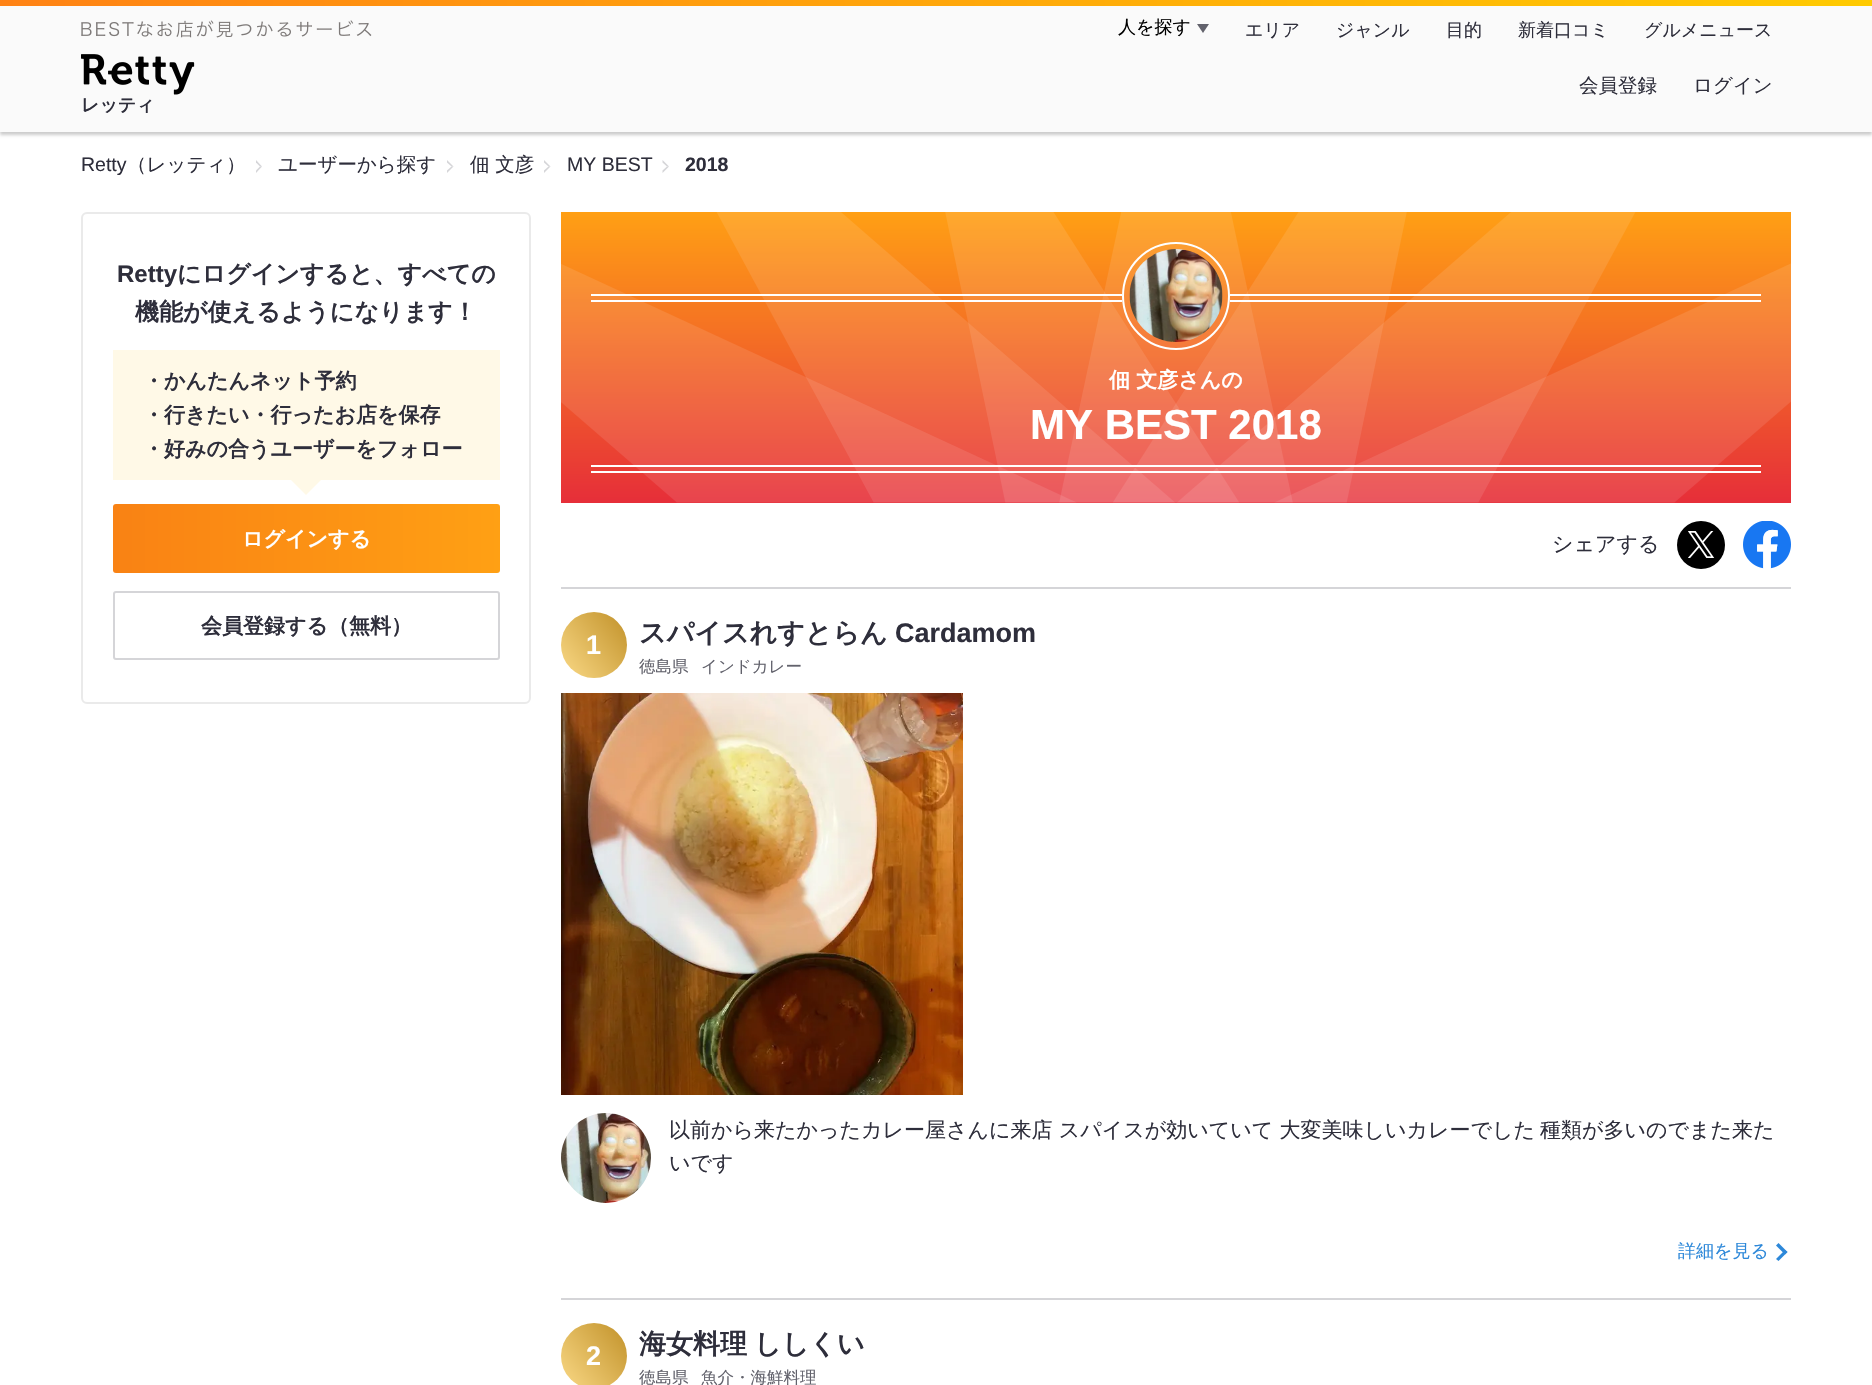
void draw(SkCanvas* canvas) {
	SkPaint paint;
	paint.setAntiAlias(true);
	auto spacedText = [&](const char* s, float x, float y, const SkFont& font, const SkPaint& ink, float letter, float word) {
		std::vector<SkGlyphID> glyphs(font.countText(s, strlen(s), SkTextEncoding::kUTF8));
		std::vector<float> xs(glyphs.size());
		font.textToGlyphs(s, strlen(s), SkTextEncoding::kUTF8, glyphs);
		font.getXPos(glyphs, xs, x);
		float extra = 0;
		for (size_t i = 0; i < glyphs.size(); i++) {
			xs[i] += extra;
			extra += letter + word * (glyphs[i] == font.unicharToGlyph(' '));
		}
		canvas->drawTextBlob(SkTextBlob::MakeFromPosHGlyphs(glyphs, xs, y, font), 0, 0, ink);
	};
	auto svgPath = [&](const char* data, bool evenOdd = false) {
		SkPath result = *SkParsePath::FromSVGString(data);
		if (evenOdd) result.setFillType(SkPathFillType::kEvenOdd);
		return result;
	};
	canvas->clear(0xffffffff);
	paint.setColor(0x33000000);
	paint.setMaskFilter(SkMaskFilter::MakeBlur(kNormal_SkBlurStyle, 1.5));
	canvas->drawRect(SkRect::MakeXYWH(0, 3, 1872, 132), paint);
	paint.setMaskFilter(nullptr);
	paint.setColor(0xfffafafa);
	canvas->drawRect(SkRect::MakeXYWH(0, 6, 1872, 126), paint);
	{
		const SkColor colors[] = {0xffff8214, 0xffffca00};
		const float stops[] = {0, 1};
		const SkPoint ends[] = {{0, 3}, {1872, 3}};
		paint.setShader(SkGradientShader::MakeLinear(ends, colors, stops, 2, SkTileMode::kClamp));
		paint.setAlpha(255);
	}
	canvas->drawRect(SkRect::MakeXYWH(0, 0, 1872, 6), paint);
	canvas->drawImageRect(SkImages::DeferredFromEncodedData(SkData::MakeFromFileName("img1.png")), SkRect::MakeXYWH(81, 20, 291, 18), SkSamplingOptions());
	SkFont f1(fontMgr->matchFamilyStyle("WenQuanYi Zen Hei", SkFontStyle(500, SkFontStyle::kNormal_Width, SkFontStyle::kUpright_Slant)), 18);
	f1.setSubpixel(true);
	paint.setShader(nullptr);
	paint.setColor(0xff000000);
	canvas->drawString("人を探す", 1118, 33, f1, paint);
	paint.setColor(0xff62626c);
	canvas->drawPath(svgPath("M1197 24H1209L1203 33Z"), paint);
	paint.setColor(0xff2e2e3b);
	canvas->drawString("エリア", 1245, 36, f1, paint);
	canvas->drawString("ジャンル", 1336, 36, f1, paint);
	canvas->drawString("目的", 1446, 36, f1, paint);
	canvas->drawString("新着口コミ", 1518, 36, f1, paint);
	canvas->drawString("グルメニュース", 1644, 36, f1, paint);
	SkFont f2(fontMgr->matchFamilyStyle("WenQuanYi Zen Hei", SkFontStyle(500, SkFontStyle::kNormal_Width, SkFontStyle::kUpright_Slant)), 19.5);
	f2.setSubpixel(true);
	canvas->drawString("会員登録", 1579, 92, f2, paint);
	canvas->drawString("ログイン", 1693, 92, f2, paint);
	canvas->drawImageRect(SkImages::DeferredFromEncodedData(SkData::MakeFromFileName("img2.png")), SkRect::MakeXYWH(81, 54, 114, 41), SkSamplingOptions());
	SkFont f3(fontMgr->matchFamilyStyle("WenQuanYi Zen Hei", SkFontStyle::Bold()), 18);
	f3.setSubpixel(true);
	canvas->drawString("レッティ", 81, 111, f3, paint);
	SkFont f4(fontMgr->matchFamilyStyle("Liberation Sans", SkFontStyle::Normal()), 19.5);
	f4.setSubpixel(true);
	canvas->drawString("Retty", 81, 171, f4, paint);
	canvas->drawString("（レッティ）", 127, 171, f2, paint);
	paint.setColor(0xffd5d5d8);
	canvas->drawPath(svgPath("M256 160L262 166.5H260L256 162.5Z"), paint);
	canvas->drawPath(svgPath("M262 166.5L256 173V170.5L260 166.5Z"), paint);
	paint.setColor(0xff2e2e3b);
	canvas->drawString("ユーザーから探す", 278, 171, f2, paint);
	paint.setColor(0xffd5d5d8);
	canvas->drawPath(svgPath("M447 160L453.5 166.5H451.5L447 162.5Z"), paint);
	canvas->drawPath(svgPath("M453.5 166.5L447 173V170.5L451.5 166.5Z"), paint);
	paint.setColor(0xff2e2e3b);
	canvas->drawString("佃 文彦", 470, 171, f2, paint);
	paint.setColor(0xffd5d5d8);
	canvas->drawPath(svgPath("M544 160L550.5 166.5H548.5L544 162.5Z"), paint);
	canvas->drawPath(svgPath("M550.5 166.5L544 173V170.5L548.5 166.5Z"), paint);
	paint.setColor(0xff2e2e3b);
	canvas->drawString("MY BEST", 567, 171, f4, paint);
	paint.setColor(0xffd5d5d8);
	canvas->drawPath(svgPath("M662.5 160L669 166.5H667L662.5 162.5Z"), paint);
	canvas->drawPath(svgPath("M669 166.5L662.5 173V170.5L667 166.5Z"), paint);
	SkFont f5(fontMgr->matchFamilyStyle("Liberation Sans", SkFontStyle::Bold()), 19.5);
	f5.setSubpixel(true);
	paint.setColor(0xff2e2e3b);
	canvas->drawString("2018", 685, 171, f5, paint);
	paint.setStroke(true);
	paint.setStrokeWidth(2);
	paint.setColor(0xffeaeaea);
	canvas->drawRoundRect(SkRect::MakeXYWH(82, 213, 448, 490), 5, 5, paint);
	SkFont f6(fontMgr->matchFamilyStyle("Liberation Sans", SkFontStyle::Bold()), 24);
	f6.setSubpixel(true);
	paint.setStroke(false);
	paint.setColor(0xff2e2e3b);
	canvas->drawString("Retty", 117, 282, f6, paint);
	SkFont f7(fontMgr->matchFamilyStyle("WenQuanYi Zen Hei", SkFontStyle::Bold()), 24);
	f7.setSubpixel(true);
	canvas->drawString("にログインすると、すべての", 177, 282, f7, paint);
	canvas->drawString("機能が使えるようになります！", 135, 320, f7, paint);
	paint.setColor(0xfffff9e7);
	canvas->drawRect(SkRect::MakeXYWH(113, 350, 387, 130), paint);
	SkFont f8(fontMgr->matchFamilyStyle("WenQuanYi Zen Hei", SkFontStyle::Bold()), 21);
	f8.setSubpixel(true);
	paint.setColor(0xff2e2e3b);
	canvas->drawString("・かんたんネット予約", 143, 388, f8, paint);
	canvas->drawString("・行きたい・行ったお店を保存", 143, 422, f8, paint);
	canvas->drawString("・好みの合うユーザーをフォロー", 143, 456, f8, paint);
	paint.setColor(0xfffff9e7);
	canvas->drawPath(svgPath("M291 480H321L306 495Z"), paint);
	{
		const SkColor colors[] = {0xfff98214, 0xffffa014};
		const float stops[] = {0, 1};
		const SkPoint ends[] = {{113, 539}, {500, 539}};
		paint.setShader(SkGradientShader::MakeLinear(ends, colors, stops, 2, SkTileMode::kClamp));
		paint.setAlpha(255);
	}
	canvas->drawRoundRect(SkRect::MakeXYWH(113, 504, 387, 69), 3, 3, paint);
	paint.setShader(nullptr);
	paint.setColor(0xffffffff);
	canvas->drawString("ログインする", 242, 546, f8, paint);
	paint.setStroke(true);
	paint.setColor(0xffd5d5d8);
	canvas->drawRoundRect(SkRect::MakeXYWH(114, 592, 385, 67), 2, 2, paint);
	paint.setStroke(false);
	paint.setColor(0xff2e2e3b);
	canvas->drawString("会員登録する（無料）", 201, 633, f8, paint);
	{
		const SkColor colors[] = {0xffffa014, 0xffe62e39};
		const float stops[] = {0, 1};
		const SkPoint ends[] = {{1176, 211}, {1176, 503}};
		paint.setShader(SkGradientShader::MakeLinear(ends, colors, stops, 2, SkTileMode::kClamp));
		paint.setAlpha(255);
	}
	canvas->drawRect(SkRect::MakeXYWH(561, 212, 1230, 291), paint);
	canvas->drawImageRect(SkImages::DeferredFromEncodedData(SkData::MakeFromFileName("img3.png")), SkRect::MakeXYWH(561, 212, 1230, 291), SkSamplingOptions());
	paint.setStroke(true);
	paint.setShader(nullptr);
	paint.setColor(0xffffffff);
	canvas->drawCircle(1176, 296, 53, paint);
	paint.setStroke(false);
	canvas->drawRect(SkRect::MakeXYWH(591, 294, 531, 2), paint);
	canvas->drawRect(SkRect::MakeXYWH(591, 300, 531, 2), paint);
	canvas->drawImageRect(SkImages::DeferredFromEncodedData(SkData::MakeFromFileName("img4.png")), SkRect::MakeXYWH(1129, 249, 94, 93), SkSamplingOptions());
	canvas->drawRect(SkRect::MakeXYWH(1230, 294, 531, 2), paint);
	canvas->drawRect(SkRect::MakeXYWH(1230, 300, 531, 2), paint);
	canvas->drawString("佃 文彦さんの", 1109, 387, f8, paint);
	SkFont f9(fontMgr->matchFamilyStyle("Liberation Sans", SkFontStyle::Bold()), 42);
	f9.setSubpixel(true);
	canvas->drawString("MY BEST 2018", 1030, 439, f9, paint);
	canvas->drawRect(SkRect::MakeXYWH(591, 465, 1170, 2), paint);
	canvas->drawRect(SkRect::MakeXYWH(591, 471, 1170, 2), paint);
	SkFont f10(fontMgr->matchFamilyStyle("WenQuanYi Zen Hei", SkFontStyle(500, SkFontStyle::kNormal_Width, SkFontStyle::kUpright_Slant)), 21);
	f10.setSubpixel(true);
	paint.setColor(0xff2e2e3b);
	canvas->drawString("シェアする", 1552, 551, f10, paint);
	paint.setColor(0xff000000);
	canvas->drawCircle(1701, 545, 24, paint);
	canvas->drawImageRect(SkImages::DeferredFromEncodedData(SkData::MakeFromFileName("img5.png")), SkRect::MakeXYWH(1688, 531, 27, 27), SkSamplingOptions());
	canvas->drawImageRect(SkImages::DeferredFromEncodedData(SkData::MakeFromFileName("img6.png")), SkRect::MakeXYWH(1743, 521, 48, 48), SkSamplingOptions());
	paint.setColor(0xffd5d5d8);
	canvas->drawRect(SkRect::MakeXYWH(561, 587, 1230, 2), paint);
	{
		const SkColor colors[] = {0xfffad986, 0xffc19129};
		const float stops[] = {0, 1};
		const SkPoint ends[] = {{557, 673}, {631, 617}};
		paint.setShader(SkGradientShader::MakeLinear(ends, colors, stops, 2, SkTileMode::kClamp));
		paint.setAlpha(255);
	}
	canvas->drawCircle(594, 645, 33, paint);
	SkFont f11(fontMgr->matchFamilyStyle("Liberation Sans", SkFontStyle::Bold()), 27);
	f11.setSubpixel(true);
	paint.setShader(nullptr);
	paint.setColor(0xffffffff);
	canvas->drawString("1", 586, 654, f11, paint);
	SkFont f12(fontMgr->matchFamilyStyle("WenQuanYi Zen Hei", SkFontStyle::Bold()), 27);
	f12.setSubpixel(true);
	paint.setColor(0xff2e2e3b);
	canvas->drawString("スパイスれすとらん", 639, 642, f12, paint);
	canvas->drawString("Cardamom", 895, 642, f11, paint);
	SkFont f13(fontMgr->matchFamilyStyle("WenQuanYi Zen Hei", SkFontStyle(500, SkFontStyle::kNormal_Width, SkFontStyle::kUpright_Slant)), 16.5);
	f13.setSubpixel(true);
	paint.setColor(0xff62626c);
	canvas->drawString("徳島県", 639, 672, f13, paint);
	canvas->drawString("インドカレー", 701, 672, f13, paint);
	canvas->drawImageRect(SkImages::DeferredFromEncodedData(SkData::MakeFromFileName("img7.png")), SkRect::MakeXYWH(561, 693, 402, 402), SkSamplingOptions());
	canvas->drawImageRect(SkImages::DeferredFromEncodedData(SkData::MakeFromFileName("img8.png")), SkRect::MakeXYWH(561, 1113, 90, 90), SkSamplingOptions());
	paint.setColor(0xff2e2e3b);
	canvas->drawString("以前から来たかったカレー屋さんに来店 スパイスが効いていて 大変美味しいカレーでした", 669, 1137, f10, paint);
	canvas->drawString("種類が多いのでまた来た", 1540, 1137, f10, paint);
	canvas->drawString("いです", 669, 1170, f10, paint);
	paint.setColor(0xff2d88d9);
	canvas->drawString("詳細を見る", 1678, 1257, f1, paint);
	canvas->drawPath(svgPath("M1778.5 1243L1787.5 1252L1785 1254.5L1776 1245.5Z"), paint);
	canvas->drawPath(svgPath("M1785 1250L1787.5 1252L1778.5 1261L1776 1259Z"), paint);
	paint.setColor(0xffd5d5d8);
	canvas->drawRect(SkRect::MakeXYWH(561, 1298, 1230, 2), paint);
	{
		const SkColor colors[] = {0xfffad986, 0xffc19129};
		const float stops[] = {0, 1};
		const SkPoint ends[] = {{557, 1384}, {631, 1328}};
		paint.setShader(SkGradientShader::MakeLinear(ends, colors, stops, 2, SkTileMode::kClamp));
		paint.setAlpha(255);
	}
	canvas->drawCircle(594, 1356, 33, paint);
	paint.setShader(nullptr);
	paint.setColor(0xffffffff);
	canvas->drawString("2", 586, 1365, f11, paint);
	paint.setColor(0xff2e2e3b);
	spacedText("海女料理 ししくい", 639, 1353, f12, paint, 0, -1);
	paint.setColor(0xff62626c);
	canvas->drawString("徳島県", 639, 1383, f13, paint);
	canvas->drawString("魚介・海鮮料理", 701, 1383, f13, paint);
}
